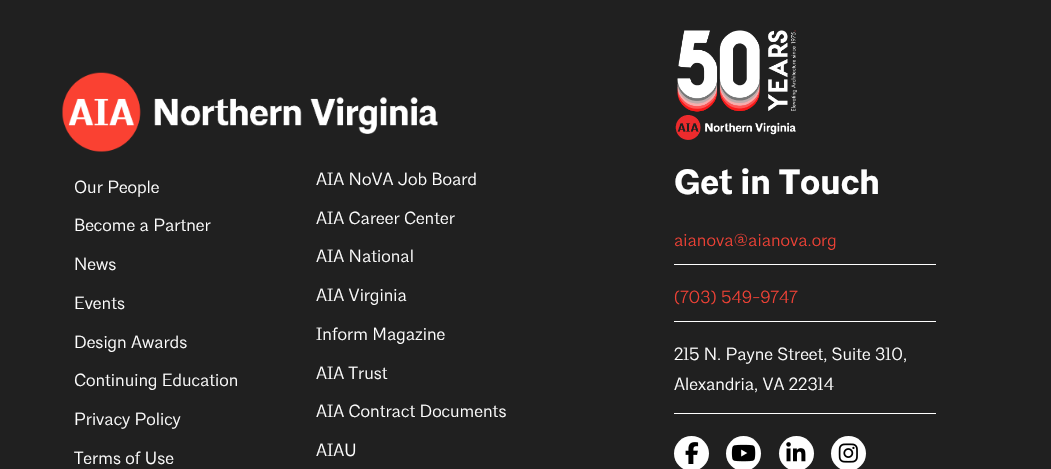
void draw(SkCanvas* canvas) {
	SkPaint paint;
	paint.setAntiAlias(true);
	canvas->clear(0xff202020);
	canvas->drawImageRect(SkImages::DeferredFromEncodedData(SkData::MakeFromFileName("img1.png")), SkRect::MakeXYWH(62, 72, 376, 80), SkSamplingOptions());
	SkFont f1(fontMgr->matchFamilyStyle("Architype", SkFontStyle(300, SkFontStyle::kNormal_Width, SkFontStyle::kUpright_Slant)), 17.5);
	f1.setSubpixel(true);
	paint.setColor(0xffffffff);
	canvas->drawString("Our People", 74, 193, f1, paint);
	canvas->drawString("Become a Partner", 74, 231, f1, paint);
	canvas->drawString("News", 74, 270, f1, paint);
	canvas->drawString("Events", 74, 309, f1, paint);
	canvas->drawString("Design Awards", 74, 348, f1, paint);
	canvas->drawString("Continuing Education", 74, 386, f1, paint);
	canvas->drawString("Privacy Policy", 74, 425, f1, paint);
	canvas->drawString("Terms of Use", 74, 464, f1, paint);
	canvas->drawString("AIA NoVA Job Board", 316, 185, f1, paint);
	canvas->drawString("AIA Career Center", 316, 224, f1, paint);
	canvas->drawString("AIA National", 316, 262, f1, paint);
	canvas->drawString("AIA Virginia", 316, 301, f1, paint);
	canvas->drawString("Inform Magazine", 316, 340, f1, paint);
	canvas->drawString("AIA Trust", 316, 379, f1, paint);
	canvas->drawString("AIA Contract Documents", 316, 417, f1, paint);
	canvas->drawString("AIAU", 316, 456, f1, paint);
	canvas->drawImageRect(SkImages::DeferredFromEncodedData(SkData::MakeFromFileName("img2.png")), SkRect::MakeXYWH(675, 30, 122, 110), SkSamplingOptions());
	SkFont f2(fontMgr->matchFamilyStyle("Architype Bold", SkFontStyle::Bold()), 35);
	f2.setSubpixel(true);
	canvas->drawString("Get in Touch", 674, 194, f2, paint);
	paint.setColor(0xffef4135);
	canvas->drawString("aianova@aianova.org", 674, 246, f1, paint);
	paint.setColor(0xffffffff);
	canvas->drawRect(SkRect::MakeXYWH(674, 264, 262, 1), paint);
	paint.setColor(0xffef4135);
	canvas->drawString("(703) 549-9747", 674, 303, f1, paint);
	paint.setColor(0xffffffff);
	canvas->drawRect(SkRect::MakeXYWH(674, 321, 262, 1), paint);
	canvas->drawString("215 N. Payne Street, Suite 310,", 674, 360, f1, paint);
	canvas->drawString("Alexandria, VA 22314", 674, 390, f1, paint);
	canvas->drawRect(SkRect::MakeXYWH(674, 413, 262, 1), paint);
	canvas->drawCircle(691.5, 453.5, 17.5, paint);
	canvas->drawImageRect(SkImages::DeferredFromEncodedData(SkData::MakeFromFileName("img3.png")), SkRect::MakeXYWH(685, 442, 14, 22), SkSamplingOptions());
	canvas->drawCircle(743.5, 453.5, 17.5, paint);
	canvas->drawImageRect(SkImages::DeferredFromEncodedData(SkData::MakeFromFileName("img4.png")), SkRect::MakeXYWH(731, 444, 25, 18), SkSamplingOptions());
	canvas->drawCircle(796.5, 453.5, 17.5, paint);
	canvas->drawImageRect(SkImages::DeferredFromEncodedData(SkData::MakeFromFileName("img5.png")), SkRect::MakeXYWH(786, 442, 20, 20), SkSamplingOptions());
	canvas->drawCircle(848.5, 453.5, 17.5, paint);
	canvas->drawImageRect(SkImages::DeferredFromEncodedData(SkData::MakeFromFileName("img6.png")), SkRect::MakeXYWH(838, 443, 20, 20), SkSamplingOptions());
}
